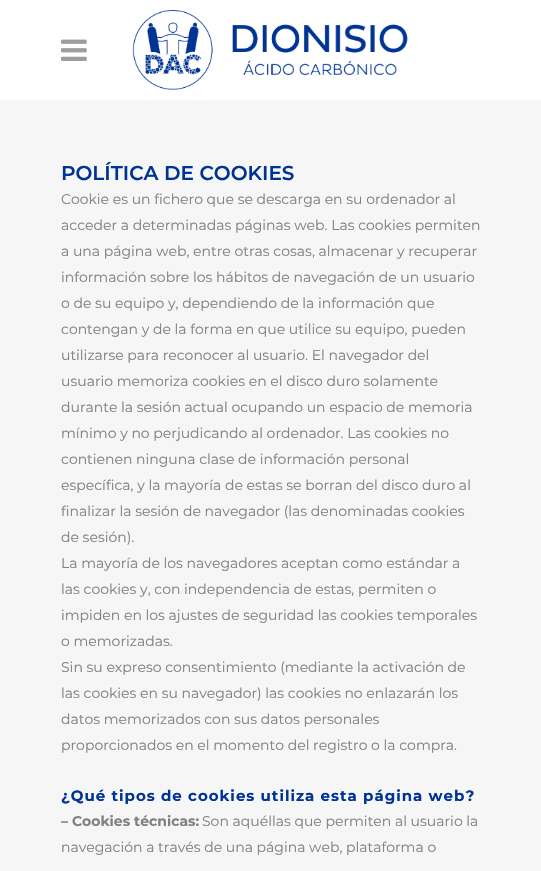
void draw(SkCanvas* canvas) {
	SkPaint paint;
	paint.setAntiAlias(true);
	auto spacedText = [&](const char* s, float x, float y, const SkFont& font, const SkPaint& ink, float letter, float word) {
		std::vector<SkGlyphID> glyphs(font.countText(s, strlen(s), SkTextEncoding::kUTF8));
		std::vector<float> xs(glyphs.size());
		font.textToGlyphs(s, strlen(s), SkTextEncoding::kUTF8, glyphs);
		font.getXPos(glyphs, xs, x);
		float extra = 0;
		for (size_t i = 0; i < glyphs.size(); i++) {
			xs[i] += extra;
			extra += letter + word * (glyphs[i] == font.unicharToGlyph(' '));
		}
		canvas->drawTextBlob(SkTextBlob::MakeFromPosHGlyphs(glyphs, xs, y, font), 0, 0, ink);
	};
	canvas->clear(0xfff6f6f6);
	paint.setColor(0xffffffff);
	canvas->drawRect(SkRect::MakeXYWH(0, 0, 541, 100), paint);
	canvas->drawImageRect(SkImages::DeferredFromEncodedData(SkData::MakeFromFileName("img1.png")), SkRect::MakeXYWH(61, 39, 26, 22), SkSamplingOptions());
	canvas->drawImageRect(SkImages::DeferredFromEncodedData(SkData::MakeFromFileName("img2.png")), SkRect::MakeXYWH(132, 10, 276, 80), SkSamplingOptions());
	SkFont f1(fontMgr->matchFamilyStyle("Montserrat", SkFontStyle(600, SkFontStyle::kNormal_Width, SkFontStyle::kUpright_Slant)), 20);
	f1.setSubpixel(true);
	paint.setColor(0xff003494);
	canvas->drawString("POLÍTICA DE COOKIES", 61, 180, f1, paint);
	SkFont f2(fontMgr->matchFamilyStyle("Montserrat", SkFontStyle::Normal()), 14);
	f2.setSubpixel(true);
	paint.setColor(0xff818181);
	canvas->drawString("Cookie es un fichero que se descarga en su ordenador al", 61, 204, f2, paint);
	canvas->drawString("acceder a determinadas páginas web. Las cookies permiten", 61, 230, f2, paint);
	canvas->drawString("a una página web, entre otras cosas, almacenar y recuperar", 61, 256, f2, paint);
	canvas->drawString("información sobre los hábitos de navegación de un usuario", 61, 282, f2, paint);
	canvas->drawString("o de su equipo y, dependiendo de la información que", 61, 308, f2, paint);
	canvas->drawString("contengan y de la forma en que utilice su equipo, pueden", 61, 334, f2, paint);
	canvas->drawString("utilizarse para reconocer al usuario. El navegador del", 61, 360, f2, paint);
	canvas->drawString("usuario memoriza cookies en el disco duro solamente", 61, 386, f2, paint);
	canvas->drawString("durante la sesión actual ocupando un espacio de memoria", 61, 412, f2, paint);
	canvas->drawString("mínimo y no perjudicando al ordenador. Las cookies no", 61, 438, f2, paint);
	canvas->drawString("contienen ninguna clase de información personal", 61, 464, f2, paint);
	canvas->drawString("específica, y la mayoría de estas se borran del disco duro al", 61, 490, f2, paint);
	canvas->drawString("finalizar la sesión de navegador (las denominadas cookies", 61, 516, f2, paint);
	canvas->drawString("de sesión).", 61, 542, f2, paint);
	canvas->drawString("La mayoría de los navegadores aceptan como estándar a", 61, 568, f2, paint);
	canvas->drawString("las cookies y, con independencia de estas, permiten o", 61, 594, f2, paint);
	canvas->drawString("impiden en los ajustes de seguridad las cookies temporales", 61, 620, f2, paint);
	canvas->drawString("o memorizadas.", 61, 646, f2, paint);
	canvas->drawString("Sin su expreso consentimiento (mediante la activación de", 61, 672, f2, paint);
	canvas->drawString("las cookies en su navegador) las cookies no enlazarán los", 61, 698, f2, paint);
	canvas->drawString("datos memorizados con sus datos personales", 61, 724, f2, paint);
	canvas->drawString("proporcionados en el momento del registro o la compra.", 61, 750, f2, paint);
	SkFont f3(fontMgr->matchFamilyStyle("Montserrat", SkFontStyle::Bold()), 15);
	f3.setSubpixel(true);
	paint.setColor(0xff003494);
	spacedText("¿Qué tipos de cookies utiliza esta página web?", 61, 801, f3, paint, 1, 0);
	SkFont f4(fontMgr->matchFamilyStyle("Montserrat", SkFontStyle::Bold()), 14);
	f4.setSubpixel(true);
	paint.setColor(0xff818181);
	canvas->drawString("– Cookies técnicas:", 61, 826, f4, paint);
	canvas->drawString("Son aquéllas que permiten al usuario la", 202, 826, f2, paint);
	canvas->drawString("navegación a través de una página web, plataforma o", 61, 852, f2, paint);
}
